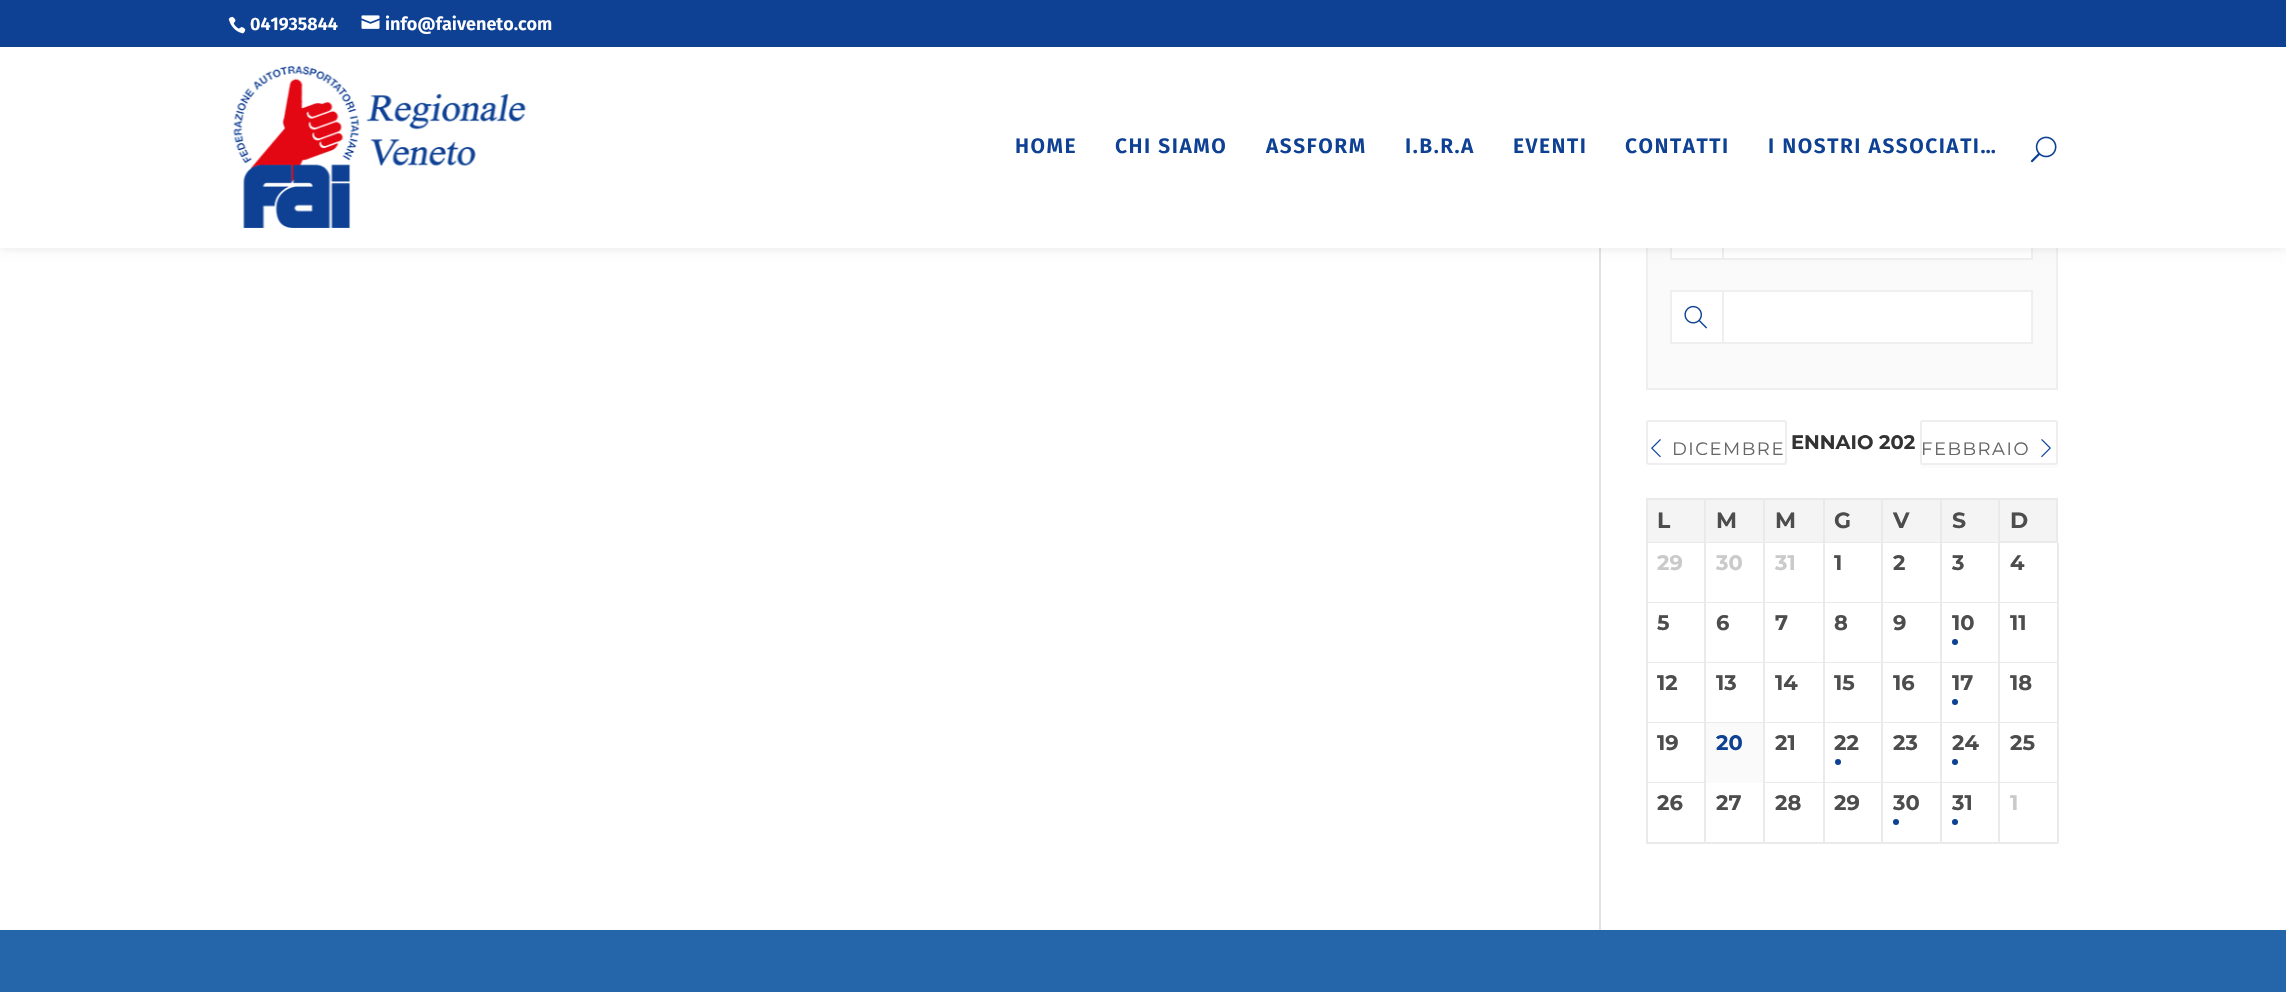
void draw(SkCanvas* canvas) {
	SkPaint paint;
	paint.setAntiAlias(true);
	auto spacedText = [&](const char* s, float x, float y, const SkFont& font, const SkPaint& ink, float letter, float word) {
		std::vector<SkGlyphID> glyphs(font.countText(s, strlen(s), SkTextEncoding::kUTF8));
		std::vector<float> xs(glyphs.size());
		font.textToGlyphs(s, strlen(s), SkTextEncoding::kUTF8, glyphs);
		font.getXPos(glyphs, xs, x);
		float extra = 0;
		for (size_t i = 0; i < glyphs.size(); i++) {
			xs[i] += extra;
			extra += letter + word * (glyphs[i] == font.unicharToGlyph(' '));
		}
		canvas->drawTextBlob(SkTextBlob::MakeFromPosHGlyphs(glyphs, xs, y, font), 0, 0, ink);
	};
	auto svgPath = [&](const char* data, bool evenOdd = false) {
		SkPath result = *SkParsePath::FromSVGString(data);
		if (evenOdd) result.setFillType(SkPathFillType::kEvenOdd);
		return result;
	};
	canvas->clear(0xffffffff);
	paint.setColor(0xffe2e2e2);
	canvas->drawRect(SkRect::MakeXYWH(1599, 248, 2, 682), paint);
	paint.setColor(0xfffafafa);
	canvas->drawRect(SkRect::MakeXYWH(1648, 248, 408, 140), paint);
	paint.setStroke(true);
	paint.setStrokeWidth(2);
	paint.setColor(0xffefefef);
	canvas->drawRect(SkRect::MakeXYWH(1647, 175, 410, 214), paint);
	paint.setStroke(false);
	paint.setColor(0xffffffff);
	canvas->drawRect(SkRect::MakeXYWH(1672, 248, 50, 10), paint);
	paint.setStroke(true);
	paint.setColor(0xffefefef);
	canvas->drawRect(SkRect::MakeXYWH(1671, 207, 52, 52), paint);
	paint.setStroke(false);
	paint.setColor(0xffffffff);
	canvas->drawRect(SkRect::MakeXYWH(1724, 248, 307, 10), paint);
	paint.setStroke(true);
	paint.setColor(0xffefefef);
	canvas->drawRect(SkRect::MakeXYWH(1723, 207, 309, 52), paint);
	paint.setStroke(false);
	paint.setColor(0x1a000000);
	paint.setMaskFilter(SkMaskFilter::MakeBlur(kNormal_SkBlurStyle, 5));
	canvas->drawRect(SkRect::MakeXYWH(0, 47, 2286, 201), paint);
	paint.setMaskFilter(nullptr);
	paint.setColor(0xff0e4194);
	canvas->drawRect(SkRect::MakeXYWH(0, 0, 2286, 47), paint);
	canvas->drawImageRect(SkImages::DeferredFromEncodedData(SkData::MakeFromFileName("img1.png")), SkRect::MakeXYWH(228, 16, 18, 18), SkSamplingOptions());
	SkFont f1(fontMgr->matchFamilyStyle("Fira Sans", SkFontStyle(600, SkFontStyle::kNormal_Width, SkFontStyle::kUpright_Slant)), 18);
	f1.setSubpixel(true);
	paint.setColor(0xffffffff);
	canvas->drawString("041935844", 250, 30, f1, paint);
	canvas->drawImageRect(SkImages::DeferredFromEncodedData(SkData::MakeFromFileName("img2.png")), SkRect::MakeXYWH(361, 15, 19, 14), SkSamplingOptions());
	canvas->drawString("info@faiveneto.com", 385, 30, f1, paint);
	canvas->drawRect(SkRect::MakeXYWH(0, 47, 2286, 201), paint);
	canvas->drawImageRect(SkImages::DeferredFromEncodedData(SkData::MakeFromFileName("img3.png")), SkRect::MakeXYWH(233, 66, 293, 162), SkSamplingOptions());
	SkFont f2(fontMgr->matchFamilyStyle("Fira Sans", SkFontStyle(600, SkFontStyle::kNormal_Width, SkFontStyle::kUpright_Slant)), 21);
	f2.setSubpixel(true);
	paint.setColor(0xff0e4194);
	spacedText("HOME", 1015, 153, f2, paint, 1.5, 0);
	spacedText("CHI SIAMO", 1115, 153, f2, paint, 1.5, 0);
	spacedText("ASSFORM", 1266, 153, f2, paint, 1.5, 0);
	spacedText("I.B.R.A", 1405, 153, f2, paint, 1.5, 0);
	spacedText("EVENTI", 1513, 153, f2, paint, 1.5, 0);
	spacedText("CONTATTI", 1625, 153, f2, paint, 1.5, 0);
	spacedText("I NOSTRI ASSOCIATI…", 1768, 153, f2, paint, 1.5, 0);
	canvas->drawImageRect(SkImages::DeferredFromEncodedData(SkData::MakeFromFileName("img4.png")), SkRect::MakeXYWH(2030, 136, 27, 27), SkSamplingOptions());
	paint.setColor(0xffffffff);
	canvas->drawRect(SkRect::MakeXYWH(1671, 291, 52, 52), paint);
	paint.setStroke(true);
	paint.setColor(0xffefefef);
	canvas->drawRect(SkRect::MakeXYWH(1671, 291, 52, 52), paint);
	canvas->drawImageRect(SkImages::DeferredFromEncodedData(SkData::MakeFromFileName("img5.png")), SkRect::MakeXYWH(1684, 305, 23, 24), SkSamplingOptions());
	paint.setStroke(false);
	paint.setColor(0xffffffff);
	canvas->drawRect(SkRect::MakeXYWH(1723, 291, 309, 52), paint);
	paint.setStroke(true);
	paint.setColor(0xffefefef);
	canvas->drawRect(SkRect::MakeXYWH(1723, 291, 309, 52), paint);
	paint.setColor(0xffeeeeee);
	canvas->drawRoundRect(SkRect::MakeXYWH(1647, 421, 139, 43), 2, 2, paint);
	canvas->drawImageRect(SkImages::DeferredFromEncodedData(SkData::MakeFromFileName("img6.png")), SkRect::MakeXYWH(1651, 439, 10, 19), SkSamplingOptions());
	SkFont f3(fontMgr->matchFamilyStyle("Montserrat", SkFontStyle::Normal()), 18);
	f3.setSubpixel(true);
	paint.setStroke(false);
	paint.setColor(0xff666666);
	spacedText("DICEMBRE", 1672, 455, f3, paint, 1.5, 0);
	SkFont f4(fontMgr->matchFamilyStyle("Montserrat", SkFontStyle::Bold()), 19.5);
	f4.setSubpixel(true);
	paint.setColor(0xff333333);
	canvas->drawString("ENNAIO 202", 1791, 449, f4, paint);
	paint.setColor(0xfffbfbfb);
	canvas->drawPath(svgPath("M1920 462V465C1920 467 1921 468 1923 468H2055C2057 468 2058 467 2058 465V462C2058 464 2057 465 2055 465H1923C1921 465 1920 464 1920 462Z"), paint);
	paint.setStroke(true);
	paint.setColor(0xffeeeeee);
	canvas->drawRoundRect(SkRect::MakeXYWH(1921, 421, 136, 43), 2, 2, paint);
	paint.setStroke(false);
	paint.setColor(0xff666666);
	spacedText("FEBBRAIO", 1921, 455, f3, paint, 1.5, 0);
	canvas->drawImageRect(SkImages::DeferredFromEncodedData(SkData::MakeFromFileName("img7.png")), SkRect::MakeXYWH(2041, 439, 10, 19), SkSamplingOptions());
	paint.setColor(0xfff4f4f4);
	canvas->drawRect(SkRect::MakeXYWH(1648, 500, 56, 42), paint);
	paint.setColor(0xffeaeaea);
	canvas->drawRect(SkRect::MakeXYWH(1646, 498, 352, 2), paint);
	canvas->drawRect(SkRect::MakeXYWH(1646, 542, 352, 1), paint);
	canvas->drawRect(SkRect::MakeXYWH(1646, 498, 2, 45), paint);
	SkFont f5(fontMgr->matchFamilyStyle("Montserrat", SkFontStyle::Bold()), 22);
	f5.setSubpixel(true);
	paint.setColor(0xff4d4d4d);
	canvas->drawString("L", 1657, 528, f5, paint);
	paint.setColor(0xfff4f4f4);
	canvas->drawRect(SkRect::MakeXYWH(1706, 500, 57, 42), paint);
	paint.setColor(0xffeaeaea);
	canvas->drawRect(SkRect::MakeXYWH(1704, 498, 2, 45), paint);
	paint.setColor(0xff4d4d4d);
	canvas->drawString("M", 1716, 528, f5, paint);
	paint.setColor(0xfff4f4f4);
	canvas->drawRect(SkRect::MakeXYWH(1765, 500, 58, 42), paint);
	paint.setColor(0xffeaeaea);
	canvas->drawRect(SkRect::MakeXYWH(1763, 498, 2, 45), paint);
	paint.setColor(0xff4d4d4d);
	canvas->drawString("M", 1775, 528, f5, paint);
	paint.setColor(0xfff4f4f4);
	canvas->drawRect(SkRect::MakeXYWH(1825, 500, 56, 42), paint);
	paint.setColor(0xffeaeaea);
	canvas->drawRect(SkRect::MakeXYWH(1823, 498, 2, 45), paint);
	paint.setColor(0xff4d4d4d);
	canvas->drawString("G", 1834, 528, f5, paint);
	paint.setColor(0xfff4f4f4);
	canvas->drawRect(SkRect::MakeXYWH(1883, 500, 57, 42), paint);
	paint.setColor(0xffeaeaea);
	canvas->drawRect(SkRect::MakeXYWH(1881, 498, 2, 45), paint);
	paint.setColor(0xff4d4d4d);
	canvas->drawString("V", 1893, 528, f5, paint);
	paint.setColor(0xfff4f4f4);
	canvas->drawRect(SkRect::MakeXYWH(1942, 500, 56, 42), paint);
	paint.setColor(0xffeaeaea);
	canvas->drawRect(SkRect::MakeXYWH(1940, 498, 2, 45), paint);
	paint.setColor(0xff4d4d4d);
	canvas->drawString("S", 1952, 528, f5, paint);
	paint.setColor(0xfff4f4f4);
	canvas->drawRect(SkRect::MakeXYWH(1999, 499, 58, 43), paint);
	paint.setStroke(true);
	paint.setColor(0xffeaeaea);
	canvas->drawRect(SkRect::MakeXYWH(1999, 499, 58, 43), paint);
	paint.setStroke(false);
	paint.setColor(0xff4d4d4d);
	canvas->drawString("D", 2010, 528, f5, paint);
	paint.setColor(0xffeaeaea);
	canvas->drawRect(SkRect::MakeXYWH(1646, 602, 352, 1), paint);
	canvas->drawRect(SkRect::MakeXYWH(1646, 543, 2, 60), paint);
	SkFont f6(fontMgr->matchFamilyStyle("Montserrat", SkFontStyle::Bold()), 21);
	f6.setSubpixel(true);
	paint.setColor(0xffcacaca);
	canvas->drawString("29", 1657, 570, f6, paint);
	paint.setColor(0xffeaeaea);
	canvas->drawRect(SkRect::MakeXYWH(1704, 543, 2, 60), paint);
	paint.setColor(0xffcacaca);
	canvas->drawString("30", 1716, 570, f6, paint);
	paint.setColor(0xffeaeaea);
	canvas->drawRect(SkRect::MakeXYWH(1763, 543, 2, 60), paint);
	paint.setColor(0xffcacaca);
	canvas->drawString("31", 1775, 570, f6, paint);
	paint.setColor(0xffeaeaea);
	canvas->drawRect(SkRect::MakeXYWH(1823, 543, 2, 60), paint);
	paint.setColor(0xff4d4d4d);
	canvas->drawString("1", 1834, 570, f6, paint);
	paint.setColor(0xffeaeaea);
	canvas->drawRect(SkRect::MakeXYWH(1881, 543, 2, 60), paint);
	paint.setColor(0xff4d4d4d);
	canvas->drawString("2", 1893, 570, f6, paint);
	paint.setColor(0xffeaeaea);
	canvas->drawRect(SkRect::MakeXYWH(1940, 543, 2, 60), paint);
	paint.setColor(0xff4d4d4d);
	canvas->drawString("3", 1952, 570, f6, paint);
	paint.setColor(0xffeaeaea);
	canvas->drawRect(SkRect::MakeXYWH(2057, 543, 2, 300), paint);
	canvas->drawRect(SkRect::MakeXYWH(1998, 602, 60, 1), paint);
	canvas->drawRect(SkRect::MakeXYWH(1998, 543, 2, 60), paint);
	paint.setColor(0xff4d4d4d);
	canvas->drawString("4", 2010, 570, f6, paint);
	paint.setColor(0xffeaeaea);
	canvas->drawRect(SkRect::MakeXYWH(1646, 662, 412, 1), paint);
	canvas->drawRect(SkRect::MakeXYWH(1646, 603, 2, 60), paint);
	paint.setColor(0xff4d4d4d);
	canvas->drawString("5", 1657, 630, f6, paint);
	paint.setColor(0xffeaeaea);
	canvas->drawRect(SkRect::MakeXYWH(1704, 603, 2, 60), paint);
	paint.setColor(0xff4d4d4d);
	canvas->drawString("6", 1716, 630, f6, paint);
	paint.setColor(0xffeaeaea);
	canvas->drawRect(SkRect::MakeXYWH(1763, 603, 2, 60), paint);
	paint.setColor(0xff4d4d4d);
	canvas->drawString("7", 1775, 630, f6, paint);
	paint.setColor(0xffeaeaea);
	canvas->drawRect(SkRect::MakeXYWH(1823, 603, 2, 60), paint);
	paint.setColor(0xff4d4d4d);
	canvas->drawString("8", 1834, 630, f6, paint);
	paint.setColor(0xffeaeaea);
	canvas->drawRect(SkRect::MakeXYWH(1881, 603, 2, 60), paint);
	paint.setColor(0xff4d4d4d);
	canvas->drawString("9", 1893, 630, f6, paint);
	paint.setColor(0xffeaeaea);
	canvas->drawRect(SkRect::MakeXYWH(1940, 603, 2, 60), paint);
	paint.setColor(0xff4d4d4d);
	canvas->drawString("10", 1952, 630, f6, paint);
	paint.setColor(0xff0e4194);
	canvas->drawCircle(1955, 642, 3, paint);
	paint.setColor(0xffeaeaea);
	canvas->drawRect(SkRect::MakeXYWH(1998, 603, 2, 60), paint);
	paint.setColor(0xff4d4d4d);
	canvas->drawString("11", 2010, 630, f6, paint);
	paint.setColor(0xffeaeaea);
	canvas->drawRect(SkRect::MakeXYWH(1646, 722, 412, 1), paint);
	canvas->drawRect(SkRect::MakeXYWH(1646, 663, 2, 60), paint);
	paint.setColor(0xff4d4d4d);
	canvas->drawString("12", 1657, 690, f6, paint);
	paint.setColor(0xffeaeaea);
	canvas->drawRect(SkRect::MakeXYWH(1704, 663, 2, 120), paint);
	paint.setColor(0xff4d4d4d);
	canvas->drawString("13", 1716, 690, f6, paint);
	paint.setColor(0xffeaeaea);
	canvas->drawRect(SkRect::MakeXYWH(1763, 663, 2, 60), paint);
	paint.setColor(0xff4d4d4d);
	canvas->drawString("14", 1775, 690, f6, paint);
	paint.setColor(0xffeaeaea);
	canvas->drawRect(SkRect::MakeXYWH(1823, 663, 2, 60), paint);
	paint.setColor(0xff4d4d4d);
	canvas->drawString("15", 1834, 690, f6, paint);
	paint.setColor(0xffeaeaea);
	canvas->drawRect(SkRect::MakeXYWH(1881, 663, 2, 60), paint);
	paint.setColor(0xff4d4d4d);
	canvas->drawString("16", 1893, 690, f6, paint);
	paint.setColor(0xffeaeaea);
	canvas->drawRect(SkRect::MakeXYWH(1940, 663, 2, 60), paint);
	paint.setColor(0xff4d4d4d);
	canvas->drawString("17", 1952, 690, f6, paint);
	paint.setColor(0xff0e4194);
	canvas->drawCircle(1955, 702, 3, paint);
	paint.setColor(0xffeaeaea);
	canvas->drawRect(SkRect::MakeXYWH(1998, 663, 2, 60), paint);
	paint.setColor(0xff4d4d4d);
	canvas->drawString("18", 2010, 690, f6, paint);
	paint.setColor(0xffeaeaea);
	canvas->drawRect(SkRect::MakeXYWH(1646, 782, 58, 1), paint);
	canvas->drawRect(SkRect::MakeXYWH(1646, 723, 2, 60), paint);
	paint.setColor(0xff4d4d4d);
	canvas->drawString("19", 1657, 750, f6, paint);
	paint.setColor(0xfffafafa);
	canvas->drawRect(SkRect::MakeXYWH(1706, 723, 57, 60), paint);
	paint.setColor(0xff0e4194);
	canvas->drawString("20", 1716, 750, f6, paint);
	paint.setColor(0xffeaeaea);
	canvas->drawRect(SkRect::MakeXYWH(1763, 782, 295, 1), paint);
	canvas->drawRect(SkRect::MakeXYWH(1763, 723, 2, 60), paint);
	paint.setColor(0xff4d4d4d);
	canvas->drawString("21", 1775, 750, f6, paint);
	paint.setColor(0xffeaeaea);
	canvas->drawRect(SkRect::MakeXYWH(1823, 723, 2, 60), paint);
	paint.setColor(0xff4d4d4d);
	canvas->drawString("22", 1834, 750, f6, paint);
	paint.setColor(0xff0e4194);
	canvas->drawCircle(1838, 762, 3, paint);
	paint.setColor(0xffeaeaea);
	canvas->drawRect(SkRect::MakeXYWH(1881, 723, 2, 60), paint);
	paint.setColor(0xff4d4d4d);
	canvas->drawString("23", 1893, 750, f6, paint);
	paint.setColor(0xffeaeaea);
	canvas->drawRect(SkRect::MakeXYWH(1940, 723, 2, 60), paint);
	paint.setColor(0xff4d4d4d);
	canvas->drawString("24", 1952, 750, f6, paint);
	paint.setColor(0xff0e4194);
	canvas->drawCircle(1955, 762, 3, paint);
	paint.setColor(0xffeaeaea);
	canvas->drawRect(SkRect::MakeXYWH(1998, 723, 2, 60), paint);
	paint.setColor(0xff4d4d4d);
	canvas->drawString("25", 2010, 750, f6, paint);
	paint.setColor(0xffeaeaea);
	canvas->drawRect(SkRect::MakeXYWH(1646, 842, 412, 2), paint);
	canvas->drawRect(SkRect::MakeXYWH(1646, 783, 2, 60), paint);
	paint.setColor(0xff4d4d4d);
	canvas->drawString("26", 1657, 810, f6, paint);
	paint.setColor(0xffeaeaea);
	canvas->drawRect(SkRect::MakeXYWH(1704, 783, 2, 60), paint);
	paint.setColor(0xff4d4d4d);
	canvas->drawString("27", 1716, 810, f6, paint);
	paint.setColor(0xffeaeaea);
	canvas->drawRect(SkRect::MakeXYWH(1763, 783, 2, 60), paint);
	paint.setColor(0xff4d4d4d);
	canvas->drawString("28", 1775, 810, f6, paint);
	paint.setColor(0xffeaeaea);
	canvas->drawRect(SkRect::MakeXYWH(1823, 783, 2, 60), paint);
	paint.setColor(0xff4d4d4d);
	canvas->drawString("29", 1834, 810, f6, paint);
	paint.setColor(0xffeaeaea);
	canvas->drawRect(SkRect::MakeXYWH(1881, 783, 2, 60), paint);
	paint.setColor(0xff4d4d4d);
	canvas->drawString("30", 1893, 810, f6, paint);
	paint.setColor(0xff0e4194);
	canvas->drawCircle(1896, 822, 3, paint);
	paint.setColor(0xffeaeaea);
	canvas->drawRect(SkRect::MakeXYWH(1940, 783, 2, 60), paint);
	paint.setColor(0xff4d4d4d);
	canvas->drawString("31", 1952, 810, f6, paint);
	paint.setColor(0xff0e4194);
	canvas->drawCircle(1955, 822, 3, paint);
	paint.setColor(0xffeaeaea);
	canvas->drawRect(SkRect::MakeXYWH(1998, 783, 2, 60), paint);
	paint.setColor(0xffcacaca);
	canvas->drawString("1", 2010, 810, f6, paint);
	paint.setColor(0xff2566aa);
	canvas->drawRect(SkRect::MakeXYWH(0, 930, 2286, 62), paint);
}
